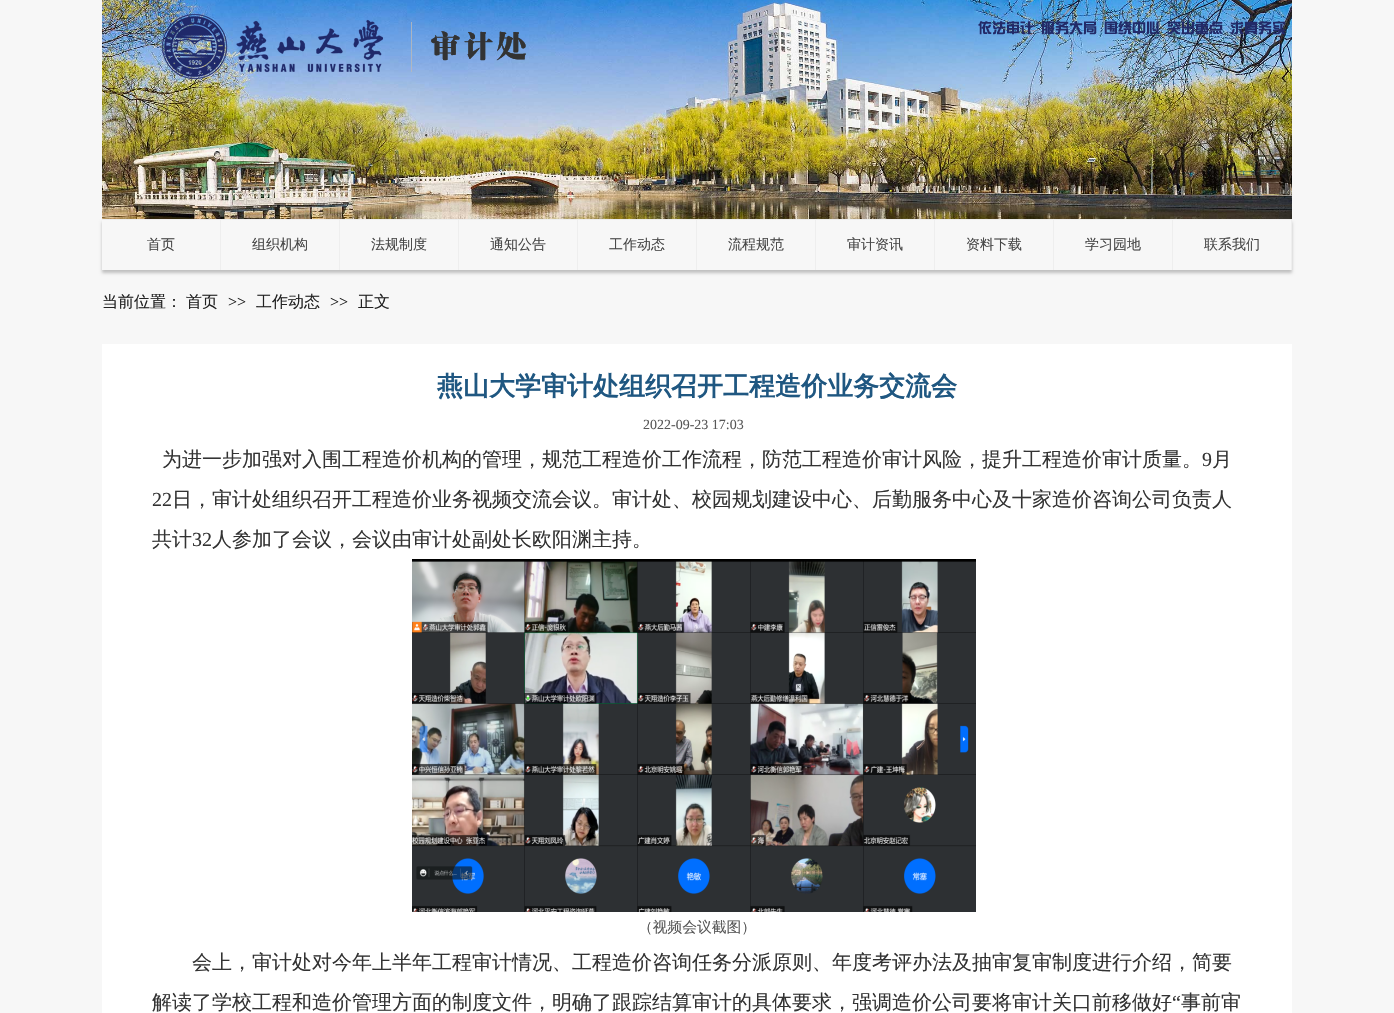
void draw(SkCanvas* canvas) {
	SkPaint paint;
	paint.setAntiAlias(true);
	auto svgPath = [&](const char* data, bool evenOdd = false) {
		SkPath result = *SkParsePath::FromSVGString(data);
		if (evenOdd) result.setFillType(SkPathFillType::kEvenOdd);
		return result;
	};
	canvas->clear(0xfff7f7f7);
	canvas->drawImageRect(SkImages::DeferredFromEncodedData(SkData::MakeFromFileName("img1.png")), SkRect::MakeXYWH(102, 0, 1190, 219), SkSamplingOptions());
	canvas->drawImageRect(SkImages::DeferredFromEncodedData(SkData::MakeFromFileName("img2.png")), SkRect::MakeXYWH(162, 14, 364, 65), SkSamplingOptions());
	canvas->drawImageRect(SkImages::DeferredFromEncodedData(SkData::MakeFromFileName("img3.png")), SkRect::MakeXYWH(978, 21, 307, 14), SkSamplingOptions());
	canvas->save();
	canvas->clipPath(svgPath("M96 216H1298V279H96ZM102 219H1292V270H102Z", true), true);
	paint.setColor(0xffc0c0c0);
	paint.setMaskFilter(SkMaskFilter::MakeBlur(kNormal_SkBlurStyle, 1.5));
	canvas->drawRect(SkRect::MakeXYWH(102, 222, 1190, 51), paint);
	paint.setMaskFilter(nullptr);
	canvas->restore();
	paint.setColor(0xffeeeeee);
	canvas->drawRect(SkRect::MakeXYWH(102, 219, 1190, 1), paint);
	canvas->drawRect(SkRect::MakeXYWH(220, 220, 1, 50), paint);
	SkFont f1(fontMgr->matchFamilyStyle("WenQuanYi Zen Hei", SkFontStyle(500, SkFontStyle::kNormal_Width, SkFontStyle::kUpright_Slant)), 14);
	f1.setSubpixel(true);
	paint.setColor(0xff464646);
	canvas->drawString("首页", 147, 249, f1, paint);
	paint.setColor(0xffeeeeee);
	canvas->drawRect(SkRect::MakeXYWH(339, 220, 1, 50), paint);
	paint.setColor(0xff464646);
	canvas->drawString("组织机构", 252, 249, f1, paint);
	paint.setColor(0xffeeeeee);
	canvas->drawRect(SkRect::MakeXYWH(458, 220, 1, 50), paint);
	paint.setColor(0xff464646);
	canvas->drawString("法规制度", 371, 249, f1, paint);
	paint.setColor(0xffeeeeee);
	canvas->drawRect(SkRect::MakeXYWH(577, 220, 1, 50), paint);
	paint.setColor(0xff464646);
	canvas->drawString("通知公告", 490, 249, f1, paint);
	paint.setColor(0xffeeeeee);
	canvas->drawRect(SkRect::MakeXYWH(696, 220, 1, 50), paint);
	paint.setColor(0xff464646);
	canvas->drawString("工作动态", 609, 249, f1, paint);
	paint.setColor(0xffeeeeee);
	canvas->drawRect(SkRect::MakeXYWH(815, 220, 1, 50), paint);
	paint.setColor(0xff464646);
	canvas->drawString("流程规范", 728, 249, f1, paint);
	paint.setColor(0xffeeeeee);
	canvas->drawRect(SkRect::MakeXYWH(934, 220, 1, 50), paint);
	paint.setColor(0xff464646);
	canvas->drawString("审计资讯", 847, 249, f1, paint);
	paint.setColor(0xffeeeeee);
	canvas->drawRect(SkRect::MakeXYWH(1053, 220, 1, 50), paint);
	paint.setColor(0xff464646);
	canvas->drawString("资料下载", 966, 249, f1, paint);
	paint.setColor(0xffeeeeee);
	canvas->drawRect(SkRect::MakeXYWH(1172, 220, 1, 50), paint);
	paint.setColor(0xff464646);
	canvas->drawString("学习园地", 1085, 249, f1, paint);
	paint.setColor(0xffeeeeee);
	canvas->drawRect(SkRect::MakeXYWH(1291, 220, 1, 50), paint);
	paint.setColor(0xff464646);
	canvas->drawString("联系我们", 1204, 249, f1, paint);
	SkFont f2(fontMgr->matchFamilyStyle("WenQuanYi Zen Hei", SkFontStyle(500, SkFontStyle::kNormal_Width, SkFontStyle::kUpright_Slant)), 16);
	f2.setSubpixel(true);
	paint.setColor(0xff222222);
	canvas->drawString("当前位置：", 102, 307, f2, paint);
	canvas->drawString("首页", 186, 307, f2, paint);
	SkFont f3(fontMgr->matchFamilyStyle("Liberation Serif", SkFontStyle::Normal()), 16);
	f3.setSubpixel(true);
	canvas->drawString(">>", 228, 307, f3, paint);
	canvas->drawString("工作动态", 256, 307, f2, paint);
	canvas->drawString(">>", 330, 307, f3, paint);
	canvas->drawString("正文", 358, 307, f2, paint);
	paint.setColor(0xffffffff);
	canvas->drawRect(SkRect::MakeXYWH(102, 344, 1190, 669), paint);
	SkFont f4(fontMgr->matchFamilyStyle("WenQuanYi Zen Hei", SkFontStyle::Bold()), 26);
	f4.setSubpixel(true);
	paint.setColor(0xff1f5781);
	canvas->drawString("燕山大学审计处组织召开工程造价业务交流会", 437, 395, f4, paint);
	SkFont f5(fontMgr->matchFamilyStyle("Liberation Serif", SkFontStyle::Normal()), 14);
	f5.setSubpixel(true);
	paint.setColor(0xff575757);
	canvas->drawString("2022-09-23 17:03", 643, 429, f5, paint);
	SkFont f6(fontMgr->matchFamilyStyle("WenQuanYi Zen Hei", SkFontStyle(500, SkFontStyle::kNormal_Width, SkFontStyle::kUpright_Slant)), 20);
	f6.setSubpixel(true);
	paint.setColor(0xff333333);
	canvas->drawString("为进一步加强对入围工程造价机构的管理，规范工程造价工作流程，防范工程造价审计风险，提升工程造价审计质量。", 162, 466, f6, paint);
	SkFont f7(fontMgr->matchFamilyStyle("Liberation Serif", SkFontStyle::Normal()), 20);
	f7.setSubpixel(true);
	canvas->drawString("9", 1202, 466, f7, paint);
	canvas->drawString("月", 1212, 466, f6, paint);
	canvas->drawString("22", 152, 506, f7, paint);
	canvas->drawString("日，审计处组织召开工程造价业务视频交流会议。审计处、校园规划建设中心、后勤服务中心及十家造价咨询公司负责人", 172, 506, f6, paint);
	canvas->drawString("共计", 152, 546, f6, paint);
	canvas->drawString("32", 192, 546, f7, paint);
	canvas->drawString("人参加了会议，会议由审计处副处长欧阳渊主持。", 212, 546, f6, paint);
	canvas->drawImageRect(SkImages::DeferredFromEncodedData(SkData::MakeFromFileName("img4.png")), SkRect::MakeXYWH(412, 559, 564, 353), SkSamplingOptions());
	SkFont f8(fontMgr->matchFamilyStyle("WenQuanYi Zen Hei", SkFontStyle(500, SkFontStyle::kNormal_Width, SkFontStyle::kUpright_Slant)), 14.75);
	f8.setSubpixel(true);
	paint.setColor(0xff575757);
	canvas->drawString("（视频会议截图）", 638, 932, f8, paint);
	paint.setColor(0xff333333);
	canvas->drawString("会上，审计处对今年上半年工程审计情况、工程造价咨询任务分派原则、年度考评办法及抽审复审制度进行介绍，简要", 192, 969, f6, paint);
	canvas->drawString("解读了学校工程和造价管理方面的制度文件，明确了跟踪结算审计的具体要求，强调造价公司要将审计关口前移做好", 152, 1009, f6, paint);
	canvas->drawString("“", 1172, 1009, f7, paint);
	canvas->drawString("事前审", 1181, 1009, f6, paint);
}
